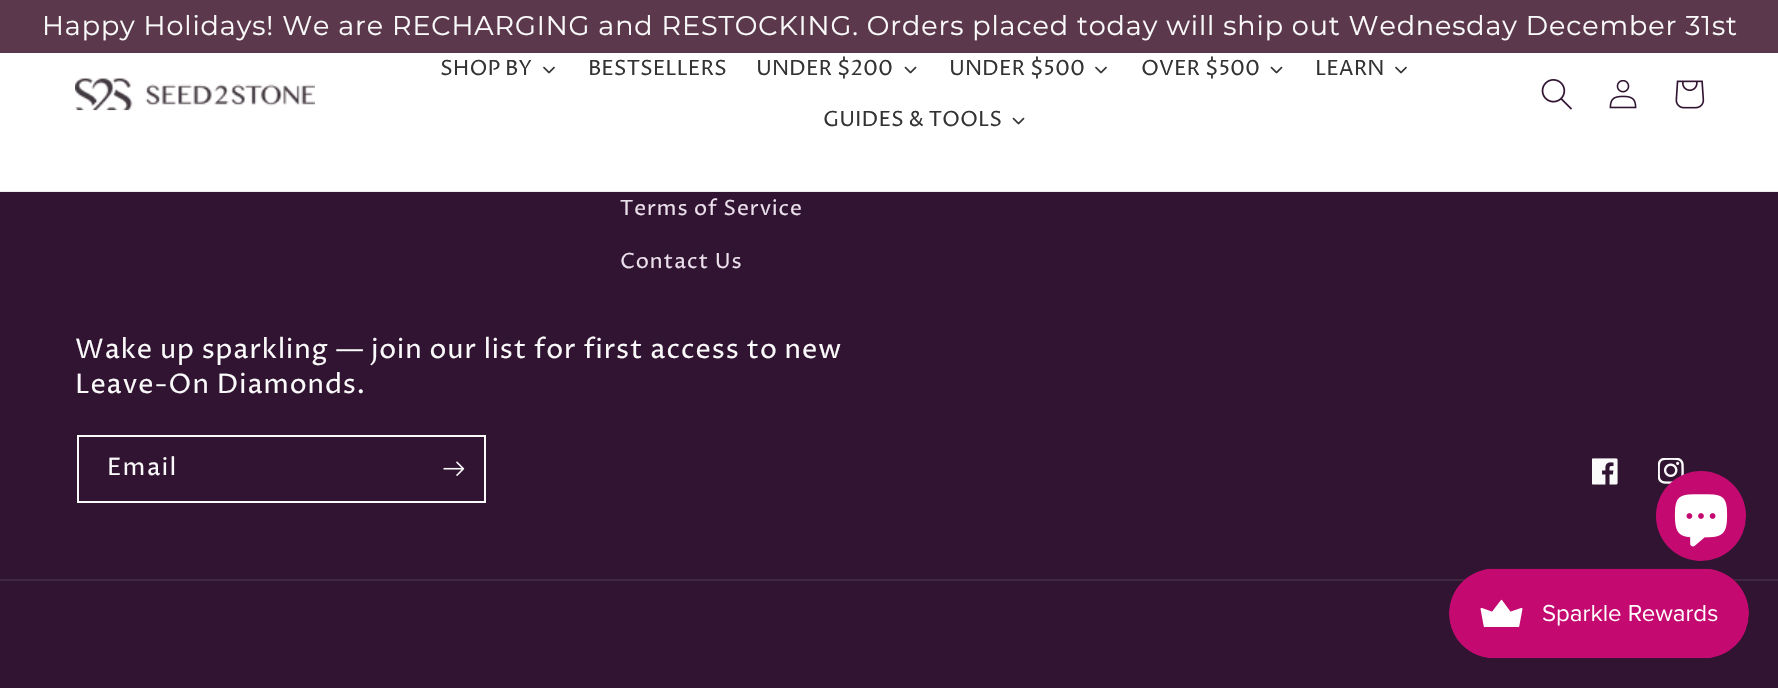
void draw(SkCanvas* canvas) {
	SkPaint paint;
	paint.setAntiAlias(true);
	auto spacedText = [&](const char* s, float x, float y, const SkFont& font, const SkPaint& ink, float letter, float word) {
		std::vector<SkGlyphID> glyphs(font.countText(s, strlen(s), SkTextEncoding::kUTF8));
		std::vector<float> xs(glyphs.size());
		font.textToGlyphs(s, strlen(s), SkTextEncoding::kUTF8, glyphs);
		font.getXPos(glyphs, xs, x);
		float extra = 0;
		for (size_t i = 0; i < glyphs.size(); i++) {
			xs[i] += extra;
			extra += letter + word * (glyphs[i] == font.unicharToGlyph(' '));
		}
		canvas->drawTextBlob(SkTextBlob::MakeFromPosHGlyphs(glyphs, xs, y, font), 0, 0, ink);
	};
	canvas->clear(0xff311432);
	paint.setColor(0xff5b384c);
	canvas->drawRect(SkRect::MakeXYWH(0, 0, 1778, 53), paint);
	SkFont f1(fontMgr->matchFamilyStyle("Montserrat", SkFontStyle::Normal()), 27);
	f1.setSubpixel(true);
	paint.setColor(0xfffafafa);
	spacedText("Happy Holidays! We are RECHARGING and RESTOCKING. Orders placed today will ship out Wednesday December 31st", 42, 35, f1, paint, 0.9, 0);
	paint.setColor(0xffffffff);
	canvas->drawRect(SkRect::MakeXYWH(0, 53, 1778, 138), paint);
	paint.setColor(0xffefecef);
	canvas->drawRect(SkRect::MakeXYWH(0, 191, 1778, 1), paint);
	canvas->drawImageRect(SkImages::DeferredFromEncodedData(SkData::MakeFromFileName("img1.png")), SkRect::MakeXYWH(75, 78, 240, 33), SkSamplingOptions());
	SkFont f2(fontMgr->matchFamilyStyle("Proza Libre", SkFontStyle::Normal()), 21);
	f2.setSubpixel(true);
	paint.setColor(0xff333333);
	canvas->drawString("SHOP BY", 440, 75, f2, paint);
	canvas->drawImageRect(SkImages::DeferredFromEncodedData(SkData::MakeFromFileName("img2.png")), SkRect::MakeXYWH(543, 66, 12, 8), SkSamplingOptions());
	canvas->drawString("BESTSELLERS", 588, 75, f2, paint);
	canvas->drawString("UNDER $200", 756, 75, f2, paint);
	canvas->drawImageRect(SkImages::DeferredFromEncodedData(SkData::MakeFromFileName("img3.png")), SkRect::MakeXYWH(904, 66, 13, 8), SkSamplingOptions());
	canvas->drawString("UNDER $500", 949, 75, f2, paint);
	canvas->drawImageRect(SkImages::DeferredFromEncodedData(SkData::MakeFromFileName("img2.png")), SkRect::MakeXYWH(1095, 66, 12, 8), SkSamplingOptions());
	canvas->drawString("OVER $500", 1141, 75, f2, paint);
	canvas->drawImageRect(SkImages::DeferredFromEncodedData(SkData::MakeFromFileName("img3.png")), SkRect::MakeXYWH(1270, 66, 13, 8), SkSamplingOptions());
	canvas->drawString("LEARN", 1315, 75, f2, paint);
	canvas->drawImageRect(SkImages::DeferredFromEncodedData(SkData::MakeFromFileName("img2.png")), SkRect::MakeXYWH(1395, 66, 12, 8), SkSamplingOptions());
	canvas->drawString("GUIDES & TOOLS", 823, 126, f2, paint);
	canvas->drawImageRect(SkImages::DeferredFromEncodedData(SkData::MakeFromFileName("img3.png")), SkRect::MakeXYWH(1012, 117, 13, 8), SkSamplingOptions());
	canvas->drawImageRect(SkImages::DeferredFromEncodedData(SkData::MakeFromFileName("img4.png")), SkRect::MakeXYWH(1541, 79, 31, 31), SkSamplingOptions());
	canvas->drawImageRect(SkImages::DeferredFromEncodedData(SkData::MakeFromFileName("img5.png")), SkRect::MakeXYWH(1609, 80, 28, 29), SkSamplingOptions());
	canvas->drawImageRect(SkImages::DeferredFromEncodedData(SkData::MakeFromFileName("img6.png")), SkRect::MakeXYWH(1675, 80, 30, 29), SkSamplingOptions());
	paint.setColor(0xffebe0eb);
	spacedText("Terms of Service", 620, 215, f2, paint, 0.9, 0);
	spacedText("Contact Us", 620, 268, f2, paint, 0.9, 0);
	SkFont f3(fontMgr->matchFamilyStyle("Proza Libre", SkFontStyle::Normal()), 27);
	f3.setSubpixel(true);
	paint.setColor(0xfffafafa);
	spacedText("Wake up sparkling — join our list for first access to new", 75, 358, f3, paint, 0.9, 0);
	spacedText("Leave-On Diamonds.", 75, 393, f3, paint, 0.9, 0);
	paint.setStroke(true);
	paint.setStrokeWidth(2);
	canvas->drawRect(SkRect::MakeXYWH(78, 436, 407, 66), paint);
	SkFont f4(fontMgr->matchFamilyStyle("Proza Libre", SkFontStyle::Normal()), 24);
	f4.setSubpixel(true);
	paint.setStroke(false);
	spacedText("Email", 107, 475, f4, paint, 1.5, 0);
	canvas->drawImageRect(SkImages::DeferredFromEncodedData(SkData::MakeFromFileName("img7.png")), SkRect::MakeXYWH(443, 461, 22, 15), SkSamplingOptions());
	canvas->drawImageRect(SkImages::DeferredFromEncodedData(SkData::MakeFromFileName("img8.png")), SkRect::MakeXYWH(1592, 458, 26, 27), SkSamplingOptions());
	canvas->drawImageRect(SkImages::DeferredFromEncodedData(SkData::MakeFromFileName("img9.png")), SkRect::MakeXYWH(1658, 458, 26, 26), SkSamplingOptions());
	paint.setColor(0xff412742);
	canvas->drawRect(SkRect::MakeXYWH(0, 579, 1778, 2), paint);
	paint.setColor(0xffc40a70);
	canvas->drawCircle(1701, 516, 45, paint);
	canvas->drawImageRect(SkImages::DeferredFromEncodedData(SkData::MakeFromFileName("img10.png")), SkRect::MakeXYWH(1674, 494, 54, 53), SkSamplingOptions());
	canvas->drawImageRect(SkImages::DeferredFromEncodedData(SkData::MakeFromFileName("img11.png")), SkRect::MakeXYWH(1449, 568, 300, 91), SkSamplingOptions());
}
